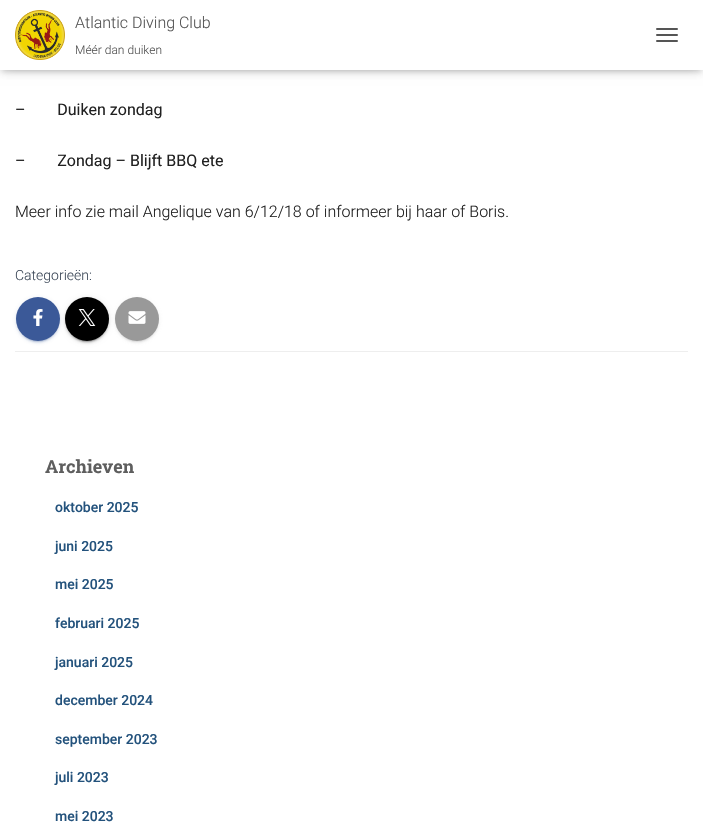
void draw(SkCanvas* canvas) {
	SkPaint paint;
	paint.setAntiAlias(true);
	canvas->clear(0xffffffff);
	paint.setColor(0x1a000000);
	paint.setMaskFilter(SkMaskFilter::MakeBlur(kNormal_SkBlurStyle, 2.5));
	canvas->drawRect(SkRect::MakeXYWH(2, 6, 699, 66), paint);
	paint.setMaskFilter(nullptr);
	paint.setColor(0x1f000000);
	paint.setMaskFilter(SkMaskFilter::MakeBlur(kNormal_SkBlurStyle, 5));
	canvas->drawRect(SkRect::MakeXYWH(0, 1, 703, 70), paint);
	paint.setMaskFilter(nullptr);
	paint.setColor(0x6b000000);
	paint.setMaskFilter(SkMaskFilter::MakeBlur(kNormal_SkBlurStyle, 5));
	canvas->drawRect(SkRect::MakeXYWH(6, 7, 691, 58), paint);
	paint.setMaskFilter(nullptr);
	paint.setColor(0xffffffff);
	canvas->drawRect(SkRect::MakeXYWH(0, 0, 703, 70), paint);
	canvas->drawImageRect(SkImages::DeferredFromEncodedData(SkData::MakeFromFileName("img1.png")), SkRect::MakeXYWH(15, 10, 50, 50), SkSamplingOptions());
	SkFont f1(fontMgr->matchFamilyStyle("Roboto", SkFontStyle(300, SkFontStyle::kNormal_Width, SkFontStyle::kUpright_Slant)), 16);
	f1.setSubpixel(true);
	paint.setColor(0xff555555);
	canvas->drawString("Atlantic Diving Club", 75, 28, f1, paint);
	SkFont f2(fontMgr->matchFamilyStyle("Roboto", SkFontStyle(300, SkFontStyle::kNormal_Width, SkFontStyle::kUpright_Slant)), 12);
	f2.setSubpixel(true);
	canvas->drawString("Méér dan duiken", 75, 54, f2, paint);
	canvas->drawRoundRect(SkRect::MakeXYWH(656, 28, 22, 2), 1, 1, paint);
	canvas->drawRoundRect(SkRect::MakeXYWH(656, 34, 22, 2), 1, 1, paint);
	canvas->drawRoundRect(SkRect::MakeXYWH(656, 40, 22, 2), 1, 1, paint);
	SkFont f3(fontMgr->matchFamilyStyle("Roboto", SkFontStyle::Normal()), 16);
	f3.setSubpixel(true);
	paint.setColor(0xff212121);
	canvas->drawString("–        Duiken zondag", 15, 115, f3, paint);
	canvas->drawString("–        Zondag – Blijft BBQ ete", 15, 166, f3, paint);
	canvas->drawString("Meer info zie mail Angelique van 6/12/18 of informeer bij haar of Boris.", 15, 217, f1, paint);
	SkFont f4(fontMgr->matchFamilyStyle("Roboto", SkFontStyle(300, SkFontStyle::kNormal_Width, SkFontStyle::kUpright_Slant)), 14);
	f4.setSubpixel(true);
	paint.setColor(0xff3c4858);
	canvas->drawString("Categorieën:", 15, 280, f4, paint);
	paint.setColor(0x1f3b5998);
	paint.setMaskFilter(SkMaskFilter::MakeBlur(kNormal_SkBlurStyle, 2.5));
	canvas->drawRoundRect(SkRect::MakeXYWH(16, 298, 44, 44), 22, 22, paint);
	paint.setMaskFilter(nullptr);
	paint.setColor(0x333b5998);
	paint.setMaskFilter(SkMaskFilter::MakeBlur(kNormal_SkBlurStyle, 0.5));
	canvas->drawRoundRect(SkRect::MakeXYWH(18, 302, 40, 40), 20, 20, paint);
	paint.setMaskFilter(nullptr);
	paint.setColor(0x243b5998);
	paint.setMaskFilter(SkMaskFilter::MakeBlur(kNormal_SkBlurStyle, 1));
	canvas->drawRoundRect(SkRect::MakeXYWH(16, 299, 44, 44), 22, 22, paint);
	paint.setMaskFilter(nullptr);
	paint.setColor(0xff3b5998);
	canvas->drawCircle(38, 319, 22, paint);
	canvas->drawImageRect(SkImages::DeferredFromEncodedData(SkData::MakeFromFileName("img2.png")), SkRect::MakeXYWH(33, 309, 10, 17), SkSamplingOptions());
	paint.setColor(0x1f000000);
	paint.setMaskFilter(SkMaskFilter::MakeBlur(kNormal_SkBlurStyle, 2.5));
	canvas->drawRoundRect(SkRect::MakeXYWH(65, 298, 44, 44), 22, 22, paint);
	paint.setMaskFilter(nullptr);
	paint.setColor(0x33000000);
	paint.setMaskFilter(SkMaskFilter::MakeBlur(kNormal_SkBlurStyle, 0.5));
	canvas->drawRoundRect(SkRect::MakeXYWH(67, 302, 40, 40), 20, 20, paint);
	paint.setMaskFilter(nullptr);
	paint.setColor(0x24000000);
	paint.setMaskFilter(SkMaskFilter::MakeBlur(kNormal_SkBlurStyle, 1));
	canvas->drawRoundRect(SkRect::MakeXYWH(65, 299, 44, 44), 22, 22, paint);
	paint.setMaskFilter(nullptr);
	paint.setColor(0xff000000);
	canvas->drawCircle(87, 319, 22, paint);
	canvas->drawImageRect(SkImages::DeferredFromEncodedData(SkData::MakeFromFileName("img3.png")), SkRect::MakeXYWH(78, 309, 18, 17), SkSamplingOptions());
	paint.setColor(0x1f999999);
	paint.setMaskFilter(SkMaskFilter::MakeBlur(kNormal_SkBlurStyle, 2.5));
	canvas->drawRoundRect(SkRect::MakeXYWH(115, 298, 44, 44), 22, 22, paint);
	paint.setMaskFilter(nullptr);
	paint.setColor(0x33999999);
	paint.setMaskFilter(SkMaskFilter::MakeBlur(kNormal_SkBlurStyle, 0.5));
	canvas->drawRoundRect(SkRect::MakeXYWH(117, 302, 40, 40), 20, 20, paint);
	paint.setMaskFilter(nullptr);
	paint.setColor(0x24999999);
	paint.setMaskFilter(SkMaskFilter::MakeBlur(kNormal_SkBlurStyle, 1));
	canvas->drawRoundRect(SkRect::MakeXYWH(115, 299, 44, 44), 22, 22, paint);
	paint.setMaskFilter(nullptr);
	paint.setColor(0xff999999);
	canvas->drawCircle(137, 319, 22, paint);
	canvas->drawImageRect(SkImages::DeferredFromEncodedData(SkData::MakeFromFileName("img4.png")), SkRect::MakeXYWH(128, 311, 18, 13), SkSamplingOptions());
	paint.setColor(0xffeeeeee);
	canvas->drawRect(SkRect::MakeXYWH(15, 351, 673, 1), paint);
	SkFont f5(fontMgr->matchFamilyStyle("Roboto Slab", SkFontStyle::Bold()), 18);
	f5.setSubpixel(true);
	paint.setColor(0xff5e5e5e);
	canvas->drawString("Archieven", 45, 473, f5, paint);
	SkFont f6(fontMgr->matchFamilyStyle("Roboto", SkFontStyle(500, SkFontStyle::kNormal_Width, SkFontStyle::kUpright_Slant)), 14);
	f6.setSubpixel(true);
	paint.setColor(0xff23527c);
	canvas->drawString("oktober 2025", 55, 512, f6, paint);
	canvas->drawString("juni 2025", 55, 551, f6, paint);
	canvas->drawString("mei 2025", 55, 589, f6, paint);
	canvas->drawString("februari 2025", 55, 628, f6, paint);
	canvas->drawString("januari 2025", 55, 667, f6, paint);
	canvas->drawString("december 2024", 55, 705, f6, paint);
	canvas->drawString("september 2023", 55, 744, f6, paint);
	canvas->drawString("juli 2023", 55, 782, f6, paint);
	canvas->drawString("mei 2023", 55, 821, f6, paint);
}
